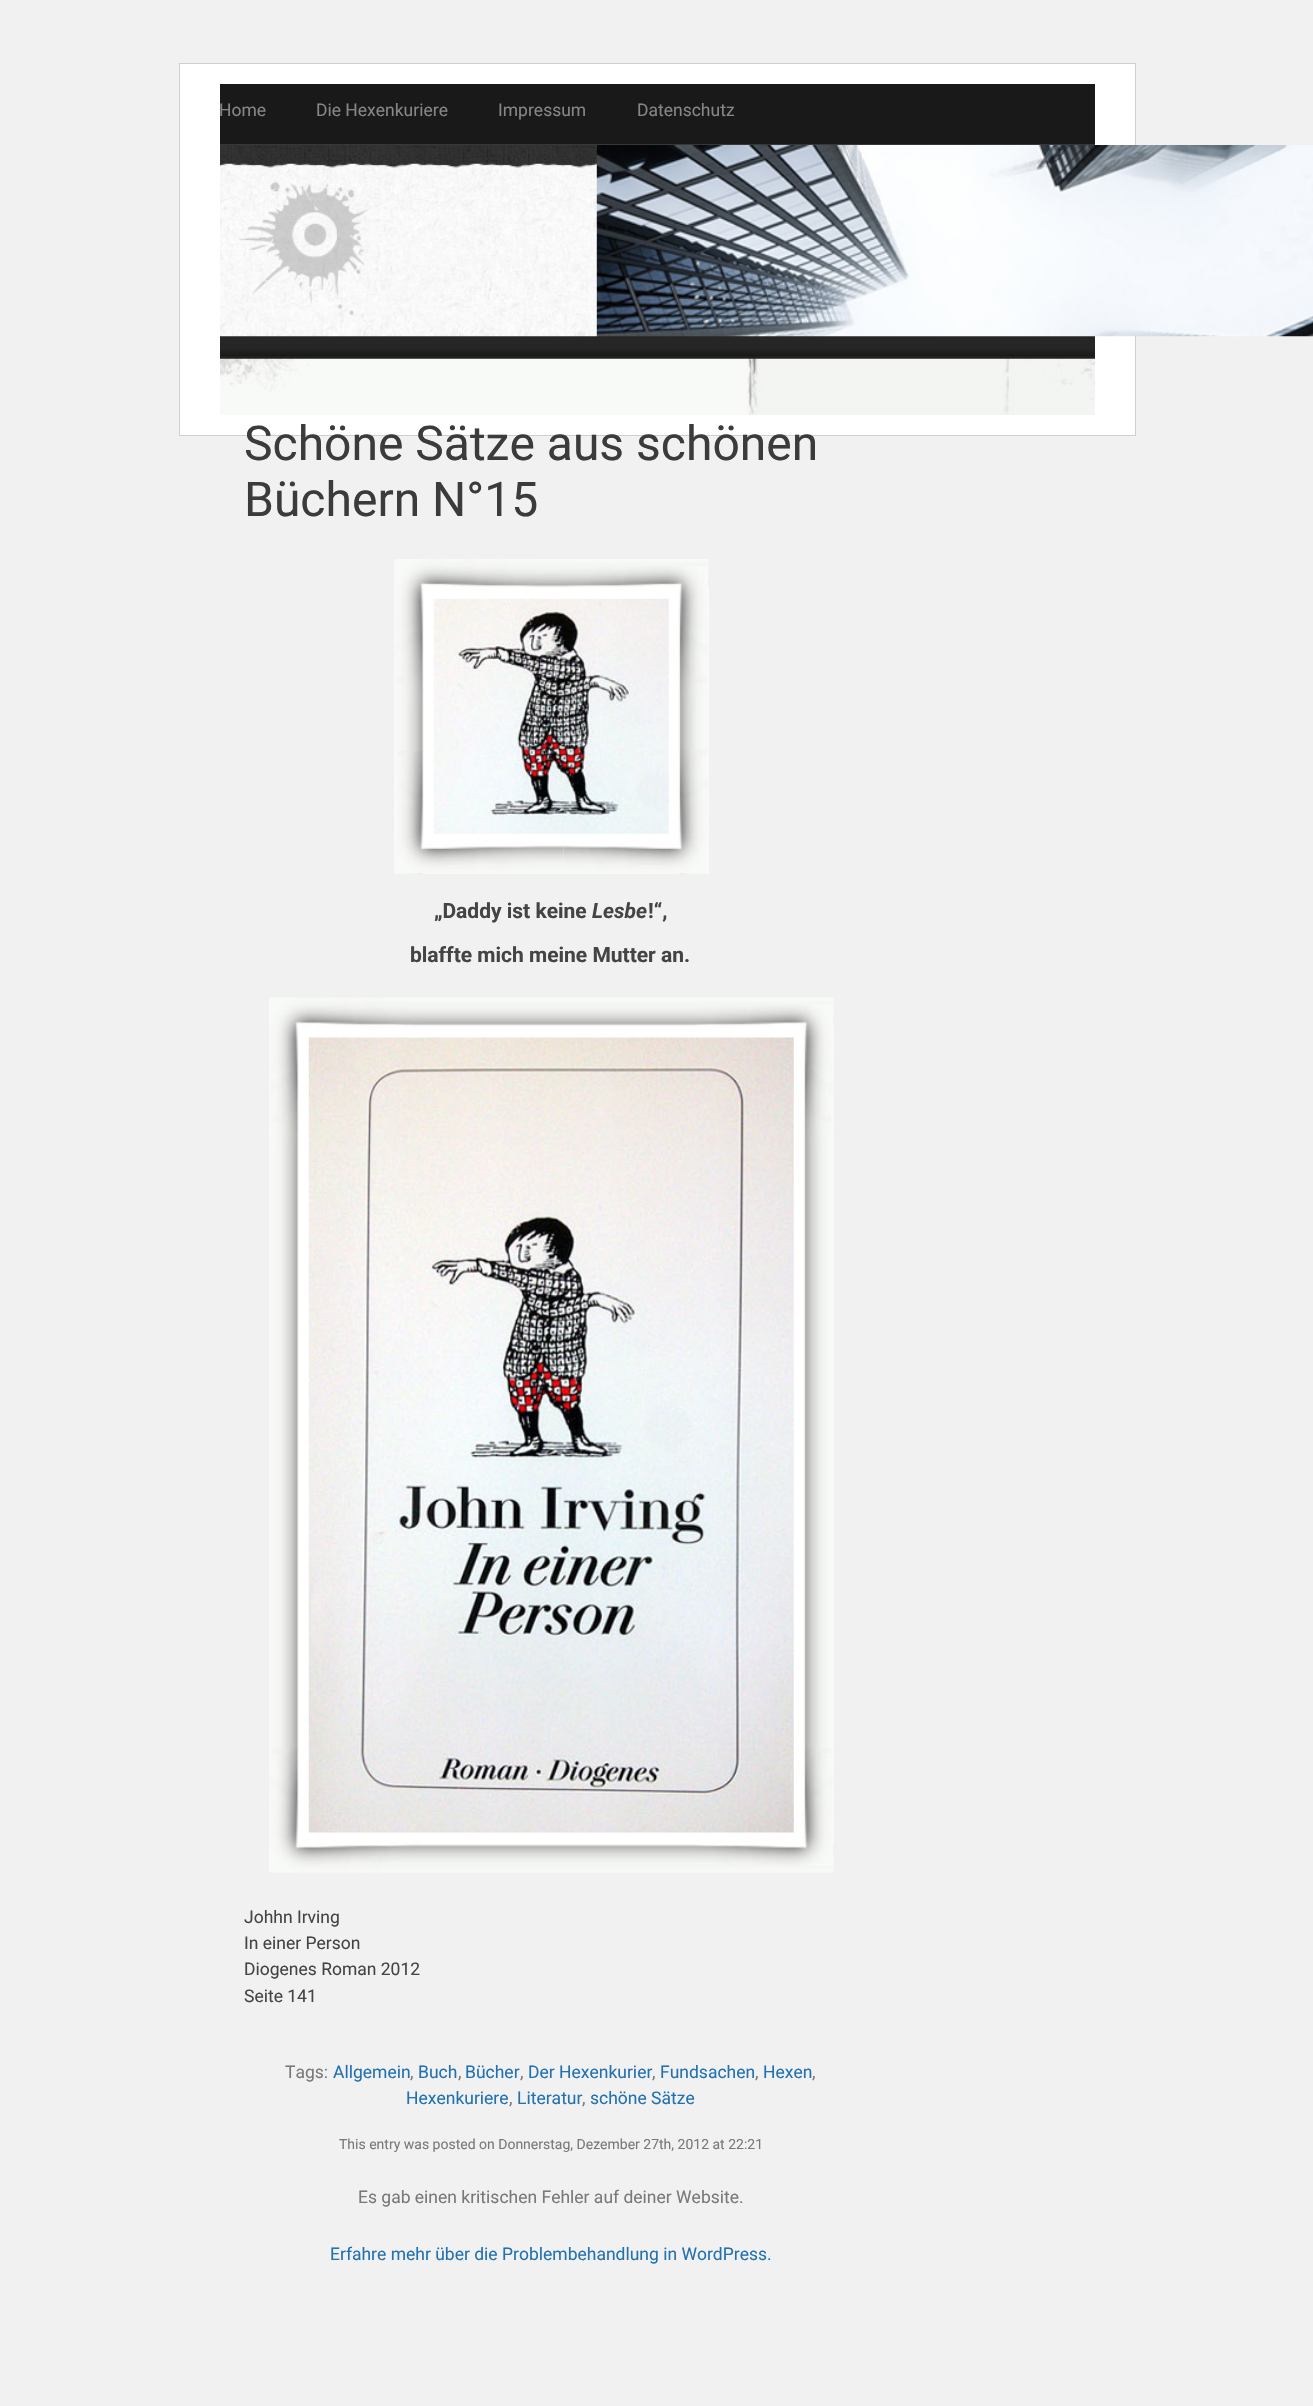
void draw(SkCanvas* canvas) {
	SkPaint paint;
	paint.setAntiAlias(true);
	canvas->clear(0xfff1f1f1);
	paint.setColor(0xffffffff);
	canvas->drawRect(SkRect::MakeXYWH(179.5, 63.5, 956, 372), paint);
	paint.setStroke(true);
	paint.setStrokeWidth(1);
	paint.setColor(0xffccd0d4);
	canvas->drawRect(SkRect::MakeXYWH(179.5, 63.5, 956, 372), paint);
	paint.setStroke(false);
	paint.setColor(0xff191919);
	canvas->drawRect(SkRect::MakeXYWH(220, 84, 875, 60), paint);
	paint.setColor(0xff373737);
	canvas->drawRect(SkRect::MakeXYWH(220, 144, 875, 1), paint);
	SkFont f1(fontMgr->matchFamilyStyle("Roboto", SkFontStyle::Normal()), 17.5);
	f1.setSubpixel(true);
	paint.setColor(0xff868686);
	canvas->drawString("Home", 219, 116, f1, paint);
	canvas->drawString("Die Hexenkuriere", 316, 116, f1, paint);
	canvas->drawString("Impressum", 498, 116, f1, paint);
	canvas->drawString("Datenschutz", 637, 116, f1, paint);
	canvas->drawImageRect(SkImages::DeferredFromEncodedData(SkData::MakeFromFileName("img1.png")), SkRect::MakeXYWH(220, 336, 875, 79), SkSamplingOptions());
	canvas->drawImageRect(SkImages::DeferredFromEncodedData(SkData::MakeFromFileName("img2.png")), SkRect::MakeXYWH(220, 145, 1093, 192), SkSamplingOptions());
	SkFont f2(fontMgr->matchFamilyStyle("Roboto", SkFontStyle::Normal()), 48);
	f2.setSubpixel(true);
	paint.setColor(0xff3b3b3b);
	canvas->drawString("Schöne Sätze aus schönen", 244, 460, f2, paint);
	canvas->drawString("Büchern N°15", 244, 516, f2, paint);
	canvas->drawImageRect(SkImages::DeferredFromEncodedData(SkData::MakeFromFileName("img3.png")), SkRect::MakeXYWH(394, 559, 315, 315), SkSamplingOptions());
	canvas->drawImageRect(SkImages::DeferredFromEncodedData(SkData::MakeFromFileName("img4.png")), SkRect::MakeXYWH(398, 751, 311, 123), SkSamplingOptions());
	canvas->drawImageRect(SkImages::DeferredFromEncodedData(SkData::MakeFromFileName("img5.png")), SkRect::MakeXYWH(563, 566, 146, 308), SkSamplingOptions());
	canvas->drawImageRect(SkImages::DeferredFromEncodedData(SkData::MakeFromFileName("img6.png")), SkRect::MakeXYWH(563, 749, 146, 125), SkSamplingOptions());
	canvas->drawImageRect(SkImages::DeferredFromEncodedData(SkData::MakeFromFileName("img7.png")), SkRect::MakeXYWH(433, 598, 236, 236), SkSamplingOptions());
	SkFont f3(fontMgr->matchFamilyStyle("Roboto", SkFontStyle::Bold()), 21);
	f3.setSubpixel(true);
	paint.setColor(0xff444444);
	canvas->drawString("„Daddy ist keine", 434, 918, f3, paint);
	SkFont f4(fontMgr->matchFamilyStyle("Roboto", SkFontStyle::BoldItalic()), 21);
	f4.setSubpixel(true);
	canvas->drawString("Lesbe", 592, 918, f4, paint);
	canvas->drawString("!“,", 648, 918, f3, paint);
	canvas->drawString("blaffte mich meine Mutter an.", 410, 962, f3, paint);
	canvas->drawImageRect(SkImages::DeferredFromEncodedData(SkData::MakeFromFileName("img8.png")), SkRect::MakeXYWH(269, 997, 565, 751), SkSamplingOptions());
	canvas->drawImageRect(SkImages::DeferredFromEncodedData(SkData::MakeFromFileName("img9.png")), SkRect::MakeXYWH(269, 1747, 565, 126), SkSamplingOptions());
	canvas->drawImageRect(SkImages::DeferredFromEncodedData(SkData::MakeFromFileName("img10.png")), SkRect::MakeXYWH(695, 1004, 139, 744), SkSamplingOptions());
	canvas->drawImageRect(SkImages::DeferredFromEncodedData(SkData::MakeFromFileName("img11.png")), SkRect::MakeXYWH(695, 1747, 139, 119), SkSamplingOptions());
	canvas->drawImageRect(SkImages::DeferredFromEncodedData(SkData::MakeFromFileName("img12.png")), SkRect::MakeXYWH(308, 1037, 486, 796), SkSamplingOptions());
	canvas->drawString("Johhn Irving", 244, 1923, f1, paint);
	canvas->drawString("In einer Person", 244, 1949, f1, paint);
	canvas->drawString("Diogenes Roman 2012", 244, 1975, f1, paint);
	canvas->drawString("Seite 141", 244, 2002, f1, paint);
	paint.setColor(0xff797979);
	canvas->drawString("Tags:", 285, 2078, f1, paint);
	paint.setColor(0xff2271b1);
	canvas->drawString("Allgemein", 333, 2078, f1, paint);
	paint.setColor(0xff797979);
	canvas->drawString(",", 410, 2078, f1, paint);
	paint.setColor(0xff2271b1);
	canvas->drawString("Buch", 418, 2078, f1, paint);
	paint.setColor(0xff797979);
	canvas->drawString(",", 458, 2078, f1, paint);
	paint.setColor(0xff2271b1);
	canvas->drawString("Bücher", 465, 2078, f1, paint);
	paint.setColor(0xff797979);
	canvas->drawString(",", 520, 2078, f1, paint);
	paint.setColor(0xff2271b1);
	canvas->drawString("Der Hexenkurier", 528, 2078, f1, paint);
	paint.setColor(0xff797979);
	canvas->drawString(",", 652, 2078, f1, paint);
	paint.setColor(0xff2271b1);
	canvas->drawString("Fundsachen", 660, 2078, f1, paint);
	paint.setColor(0xff797979);
	canvas->drawString(",", 755, 2078, f1, paint);
	paint.setColor(0xff2271b1);
	canvas->drawString("Hexen", 763, 2078, f1, paint);
	paint.setColor(0xff797979);
	canvas->drawString(",", 812, 2078, f1, paint);
	paint.setColor(0xff2271b1);
	canvas->drawString("Hexenkuriere", 406, 2104, f1, paint);
	paint.setColor(0xff797979);
	canvas->drawString(",", 509, 2104, f1, paint);
	paint.setColor(0xff2271b1);
	canvas->drawString("Literatur", 517, 2104, f1, paint);
	paint.setColor(0xff797979);
	canvas->drawString(",", 582, 2104, f1, paint);
	paint.setColor(0xff2271b1);
	canvas->drawString("schöne Sätze", 590, 2104, f1, paint);
	SkFont f5(fontMgr->matchFamilyStyle("Roboto", SkFontStyle::Normal()), 14);
	f5.setSubpixel(true);
	paint.setColor(0xff797979);
	canvas->drawString("This entry was posted on Donnerstag, Dezember 27th, 2012 at 22:21", 339, 2149, f5, paint);
	canvas->drawString("Es gab einen kritischen Fehler auf deiner Website.", 358, 2203, f1, paint);
	paint.setColor(0xff2271b1);
	canvas->drawString("Erfahre mehr über die Problembehandlung in WordPress.", 330, 2260, f1, paint);
}
